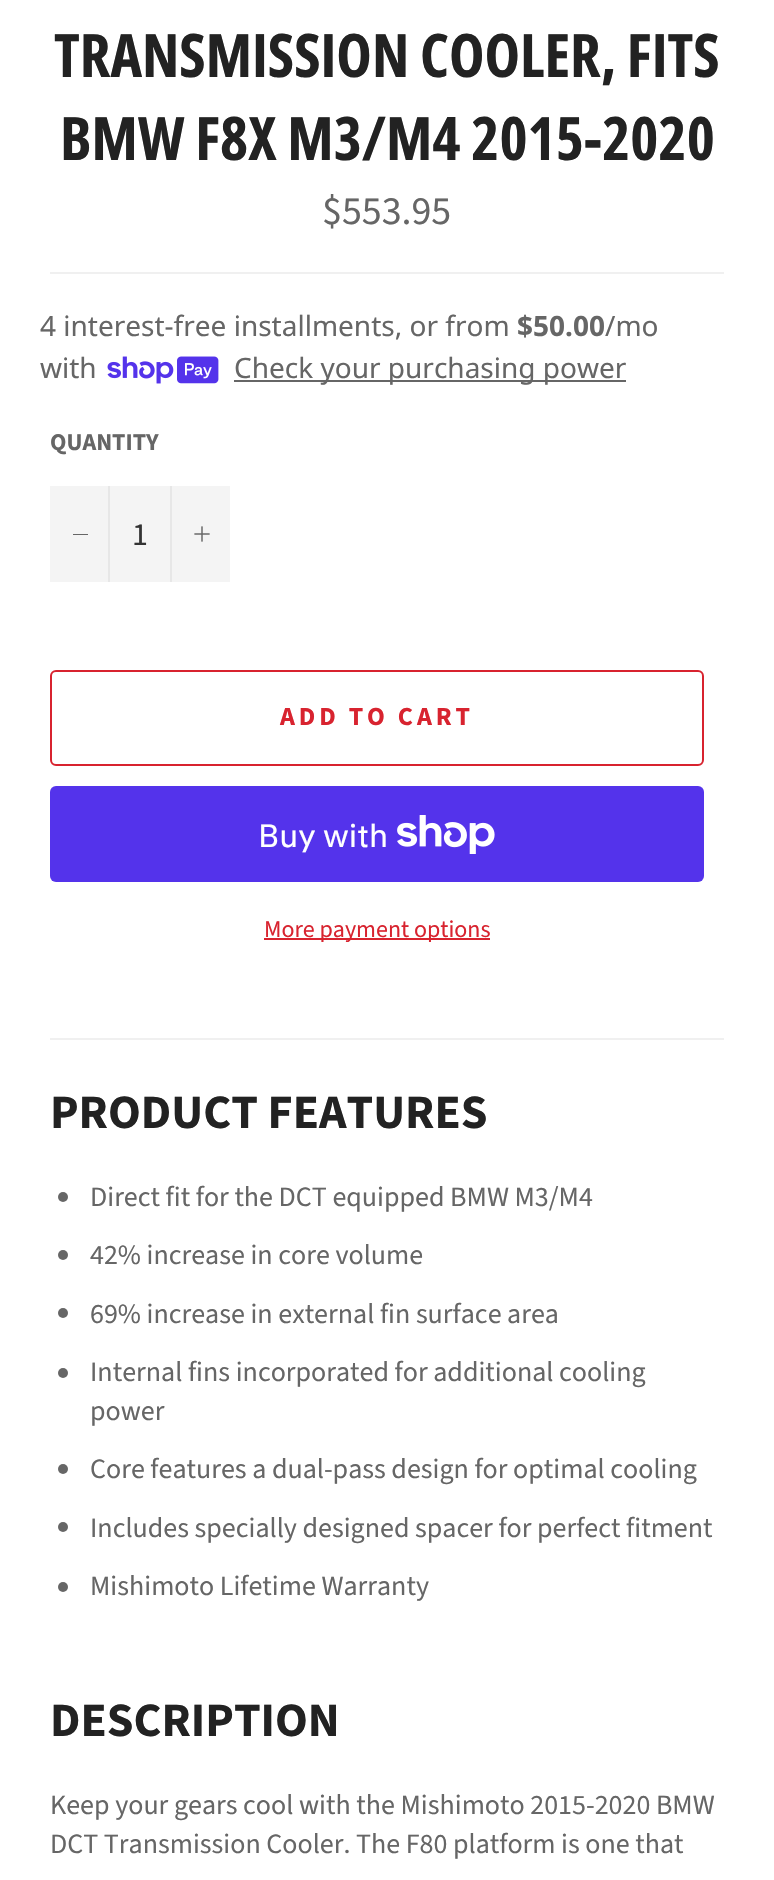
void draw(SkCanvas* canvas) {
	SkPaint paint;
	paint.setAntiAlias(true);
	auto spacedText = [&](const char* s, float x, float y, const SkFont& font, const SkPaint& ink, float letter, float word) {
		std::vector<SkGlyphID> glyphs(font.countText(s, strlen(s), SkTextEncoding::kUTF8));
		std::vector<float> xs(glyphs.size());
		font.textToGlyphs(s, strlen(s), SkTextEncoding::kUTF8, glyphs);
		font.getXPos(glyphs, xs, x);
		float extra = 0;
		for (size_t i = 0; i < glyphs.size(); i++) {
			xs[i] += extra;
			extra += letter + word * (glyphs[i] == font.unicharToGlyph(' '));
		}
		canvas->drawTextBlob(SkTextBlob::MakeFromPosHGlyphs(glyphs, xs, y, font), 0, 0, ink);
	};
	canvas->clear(0xffffffff);
	SkFont f1(fontMgr->matchFamilyStyle("Open Sans Condensed", SkFontStyle::Bold()), 60);
	f1.setSubpixel(true);
	paint.setColor(0xff222222);
	canvas->drawString("TRANSMISSION COOLER, FITS", 54, 77, f1, paint);
	canvas->drawString("BMW F8X M3/M4 2015-2020", 60, 160, f1, paint);
	SkFont f2(fontMgr->matchFamilyStyle("Source Sans Pro", SkFontStyle::Normal()), 40);
	f2.setSubpixel(true);
	paint.setColor(0xff666666);
	canvas->drawString("$553.95", 322, 224, f2, paint);
	paint.setColor(0xfff0f0f0);
	canvas->drawRect(SkRect::MakeXYWH(50, 272, 674, 2), paint);
	SkFont f3(fontMgr->matchFamilyStyle("Noto Sans", SkFontStyle::Normal()), 28);
	f3.setSubpixel(true);
	paint.setColor(0xff666666);
	canvas->drawString("4 interest-free installments, or from", 40, 336, f3, paint);
	SkFont f4(fontMgr->matchFamilyStyle("Noto Sans", SkFontStyle::Bold()), 28);
	f4.setSubpixel(true);
	canvas->drawString("$50.00", 517, 336, f4, paint);
	canvas->drawString("/mo", 605, 336, f3, paint);
	canvas->drawString("with", 40, 378, f3, paint);
	canvas->drawImageRect(SkImages::DeferredFromEncodedData(SkData::MakeFromFileName("img1.png")), SkRect::MakeXYWH(107, 356, 112, 28), SkSamplingOptions());
	canvas->drawRect(SkRect::MakeXYWH(234, 380, 392, 2), paint);
	canvas->drawString("Check your purchasing power", 234, 378, f3, paint);
	SkFont f5(fontMgr->matchFamilyStyle("Source Sans Pro", SkFontStyle::Bold()), 24);
	f5.setSubpixel(true);
	canvas->drawString("QUANTITY", 50, 450, f5, paint);
	paint.setColor(0xfff4f4f4);
	canvas->drawRect(SkRect::MakeXYWH(50, 486, 180, 96), paint);
	paint.setColor(0xffe7e7e7);
	canvas->drawRect(SkRect::MakeXYWH(108, 486, 2, 96), paint);
	paint.setColor(0xff666666);
	canvas->drawRect(SkRect::MakeXYWH(73, 534, 15, 1), paint);
	SkFont f6(fontMgr->matchFamilyStyle("Source Sans Pro", SkFontStyle::Normal()), 32);
	f6.setSubpixel(true);
	paint.setColor(0xff333333);
	canvas->drawString("1", 132, 545, f6, paint);
	paint.setColor(0xffe7e7e7);
	canvas->drawRect(SkRect::MakeXYWH(170, 486, 2, 96), paint);
	canvas->drawImageRect(SkImages::DeferredFromEncodedData(SkData::MakeFromFileName("img2.png")), SkRect::MakeXYWH(194, 526, 16, 16), SkSamplingOptions());
	paint.setStroke(true);
	paint.setStrokeWidth(2);
	paint.setColor(0xffd8232f);
	canvas->drawRoundRect(SkRect::MakeXYWH(51, 671, 652, 94), 5, 5, paint);
	SkFont f7(fontMgr->matchFamilyStyle("Source Sans Pro", SkFontStyle::Bold()), 26);
	f7.setSubpixel(true);
	paint.setStroke(false);
	spacedText("ADD TO CART", 280, 725, f7, paint, 3.9, 0);
	paint.setColor(0xff5433eb);
	canvas->drawRoundRect(SkRect::MakeXYWH(50, 786, 654, 96), 6, 6, paint);
	SkFont f8(fontMgr->matchFamilyStyle("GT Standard", SkFontStyle::Normal()), 32);
	f8.setSubpixel(true);
	paint.setColor(0xffffffff);
	canvas->drawString("Buy with", 258, 847, f8, paint);
	canvas->drawImageRect(SkImages::DeferredFromEncodedData(SkData::MakeFromFileName("img3.png")), SkRect::MakeXYWH(397, 815, 98, 39), SkSamplingOptions());
	paint.setColor(0xffd8232f);
	canvas->drawRect(SkRect::MakeXYWH(264, 938, 226, 2), paint);
	SkFont f9(fontMgr->matchFamilyStyle("Source Sans Pro", SkFontStyle::Normal()), 24);
	f9.setSubpixel(true);
	canvas->drawString("More payment options", 264, 937, f9, paint);
	paint.setColor(0xfff0f0f0);
	canvas->drawRect(SkRect::MakeXYWH(50, 1038, 674, 2), paint);
	SkFont f10(fontMgr->matchFamilyStyle("Source Sans Pro", SkFontStyle::Bold()), 48);
	f10.setSubpixel(true);
	paint.setColor(0xff222222);
	canvas->drawString("PRODUCT FEATURES", 50, 1128, f10, paint);
	paint.setColor(0xff666666);
	canvas->drawCircle(63, 1197, 5, paint);
	SkFont f11(fontMgr->matchFamilyStyle("Source Sans Pro", SkFontStyle::Normal()), 28);
	f11.setSubpixel(true);
	canvas->drawString("Direct fit for the DCT equipped BMW M3/M4", 90, 1206, f11, paint);
	canvas->drawCircle(63, 1255, 5, paint);
	canvas->drawString("42% increase in core volume", 90, 1264, f11, paint);
	canvas->drawCircle(63, 1313, 5, paint);
	canvas->drawString("69% increase in external fin surface area", 90, 1323, f11, paint);
	canvas->drawCircle(63, 1373, 5, paint);
	canvas->drawString("Internal fins incorporated for additional cooling", 90, 1381, f11, paint);
	canvas->drawString("power", 90, 1420, f11, paint);
	canvas->drawCircle(63, 1469, 5, paint);
	canvas->drawString("Core features a dual-pass design for optimal cooling", 90, 1478, f11, paint);
	canvas->drawCircle(63, 1527, 5, paint);
	canvas->drawString("Includes specially designed spacer for perfect fitment", 90, 1537, f11, paint);
	canvas->drawCircle(63, 1587, 5, paint);
	canvas->drawString("Mishimoto Lifetime Warranty", 90, 1595, f11, paint);
	paint.setColor(0xff222222);
	canvas->drawString("DESCRIPTION", 50, 1736, f10, paint);
	paint.setColor(0xff666666);
	canvas->drawString("Keep your gears cool with the Mishimoto 2015-2020 BMW", 50, 1814, f11, paint);
	canvas->drawString("DCT Transmission Cooler. The F80 platform is one that", 50, 1853, f11, paint);
}
